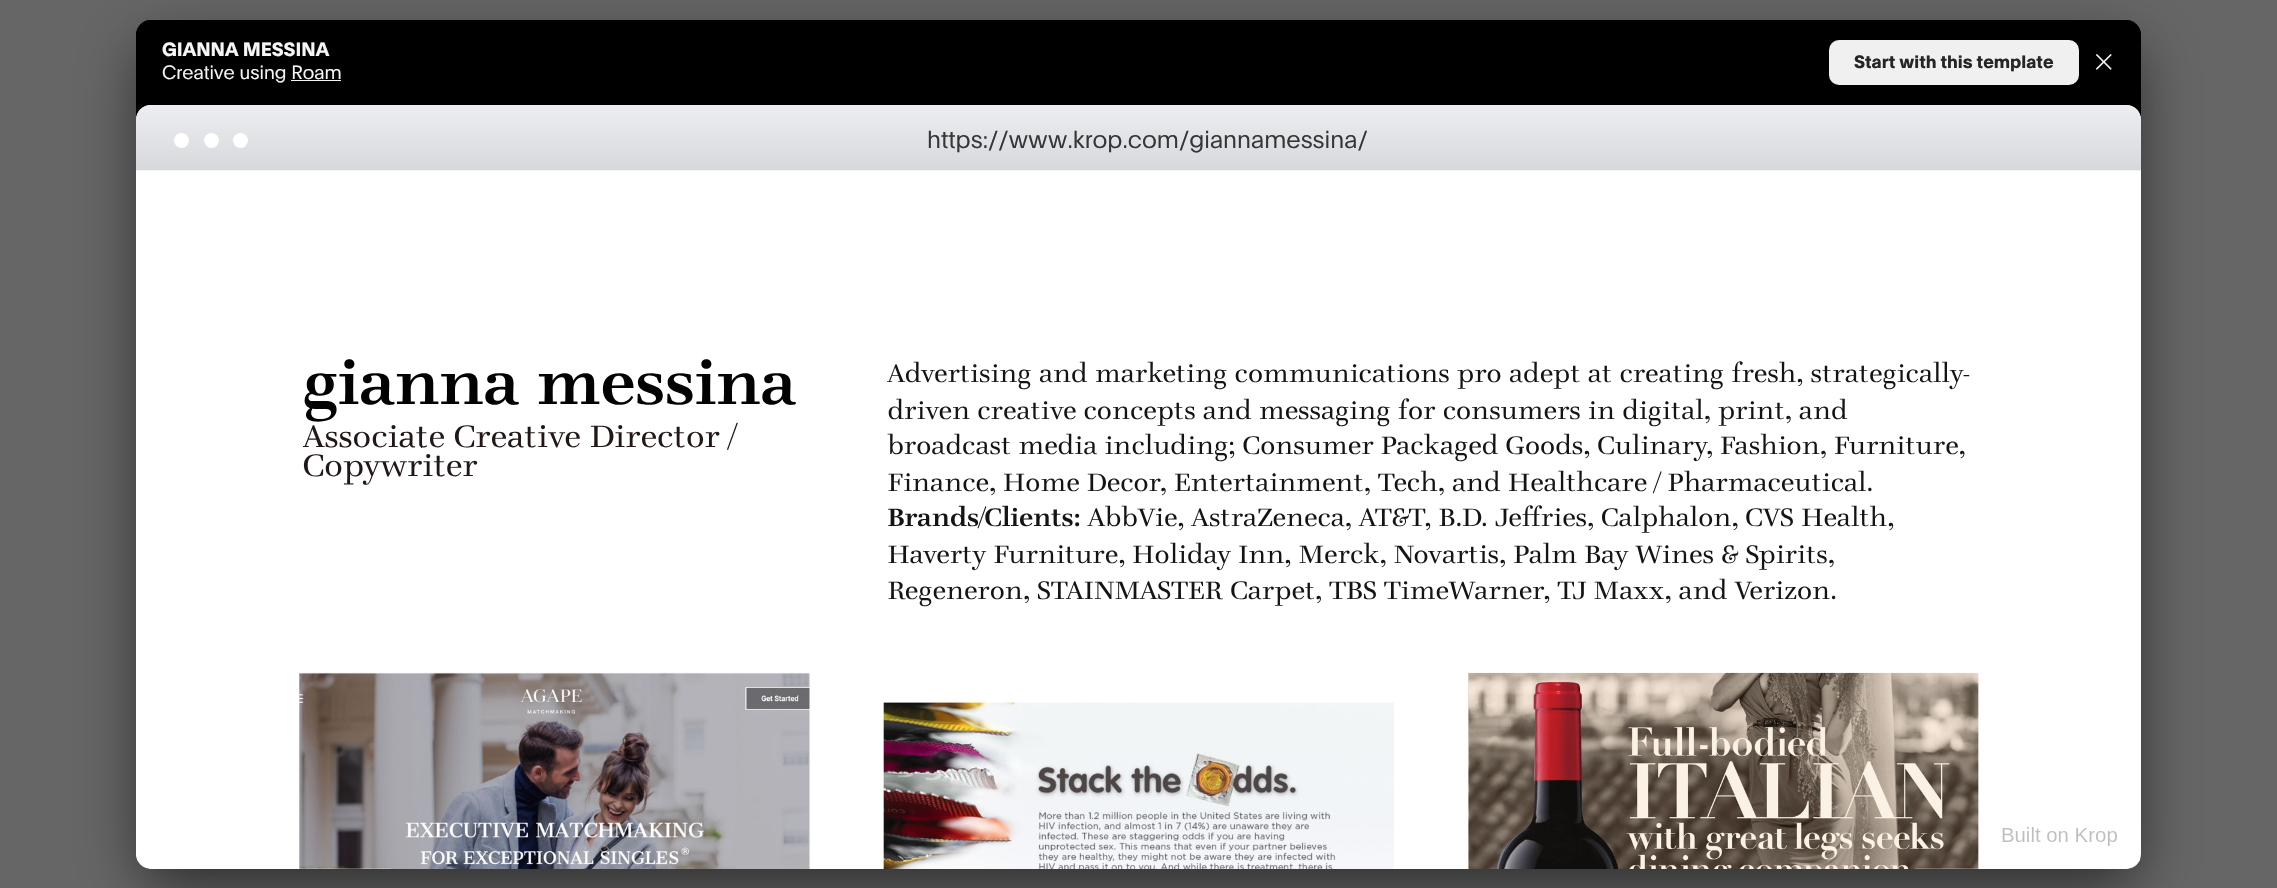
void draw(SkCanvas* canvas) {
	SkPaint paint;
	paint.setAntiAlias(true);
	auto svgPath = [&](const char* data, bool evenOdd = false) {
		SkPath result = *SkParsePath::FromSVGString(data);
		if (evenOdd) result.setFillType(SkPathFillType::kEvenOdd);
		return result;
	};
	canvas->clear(0xff666666);
	paint.setColor(0x99000000);
	paint.setMaskFilter(SkMaskFilter::MakeBlur(kNormal_SkBlurStyle, 29));
	canvas->drawRect(SkRect::MakeXYWH(143, 48, 1992, 836), paint);
	paint.setMaskFilter(nullptr);
	paint.setColor(0xff000000);
	canvas->drawRoundRect(SkRect::MakeXYWH(136, 20, 2005, 849), 15, 15, paint);
	canvas->drawRoundRect(SkRect::MakeXYWH(136, 20, 2005, 85), 15, 15, paint);
	SkFont f1(fontMgr->matchFamilyStyle("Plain", SkFontStyle::Bold()), 18.75);
	f1.setSubpixel(true);
	paint.setColor(0xfff5f6f7);
	canvas->drawString("GIANNA MESSINA", 162, 56, f1, paint);
	SkFont f2(fontMgr->matchFamilyStyle("Plain", SkFontStyle::Normal()), 18.75);
	f2.setSubpixel(true);
	canvas->drawString("Creative using Roam", 162, 79, f2, paint);
	canvas->drawRect(SkRect::MakeXYWH(291, 80, 50, 1), paint);
	paint.setColor(0xfff0f0f0);
	canvas->drawRoundRect(SkRect::MakeXYWH(1829, 40, 250, 45), 10, 10, paint);
	SkFont f3(fontMgr->matchFamilyStyle("Plain", SkFontStyle::Bold()), 17.5);
	f3.setSubpixel(true);
	paint.setColor(0xff252627);
	canvas->drawString("Start with this template", 1854, 68, f3, paint);
	canvas->drawImageRect(SkImages::DeferredFromEncodedData(SkData::MakeFromFileName("img1.png")), SkRect::MakeXYWH(2095, 54, 17, 16), SkSamplingOptions());
	paint.setColor(0xffffffff);
	canvas->drawRoundRect(SkRect::MakeXYWH(136, 105, 2005, 764), 15, 15, paint);
	{
		const SkColor colors[] = {0xffeceef2, 0xffd7d8dc};
		const float stops[] = {0, 1};
		const SkPoint ends[] = {{1139, 105}, {1139, 170}};
		paint.setShader(SkGradientShader::MakeLinear(ends, colors, stops, 2, SkTileMode::kClamp));
		paint.setAlpha(255);
	}
	canvas->drawPath(svgPath("M151 105H2126C2134.5 105 2141 111.5 2141 120V170H136V120C136 111.5 142.5 105 151 105Z"), paint);
	paint.setShader(nullptr);
	paint.setColor(0xfff3f3f3);
	canvas->drawRect(SkRect::MakeXYWH(136, 170, 2005, 1), paint);
	paint.setColor(0xffffffff);
	canvas->drawCircle(181.5, 140.5, 7.5, paint);
	canvas->drawCircle(211.5, 140.5, 7.5, paint);
	canvas->drawCircle(240.5, 140.5, 7.5, paint);
	SkFont f4(fontMgr->matchFamilyStyle("Plain", SkFontStyle::Normal()), 24.1);
	f4.setSubpixel(true);
	paint.setColor(0xff363636);
	canvas->drawString("https://www.krop.com/giannamessina/", 927, 148, f4, paint);
	canvas->drawImageRect(SkImages::DeferredFromEncodedData(SkData::MakeFromFileName("img2.png")), SkRect::MakeXYWH(136, 359, 2004, 510), SkSamplingOptions());
}
